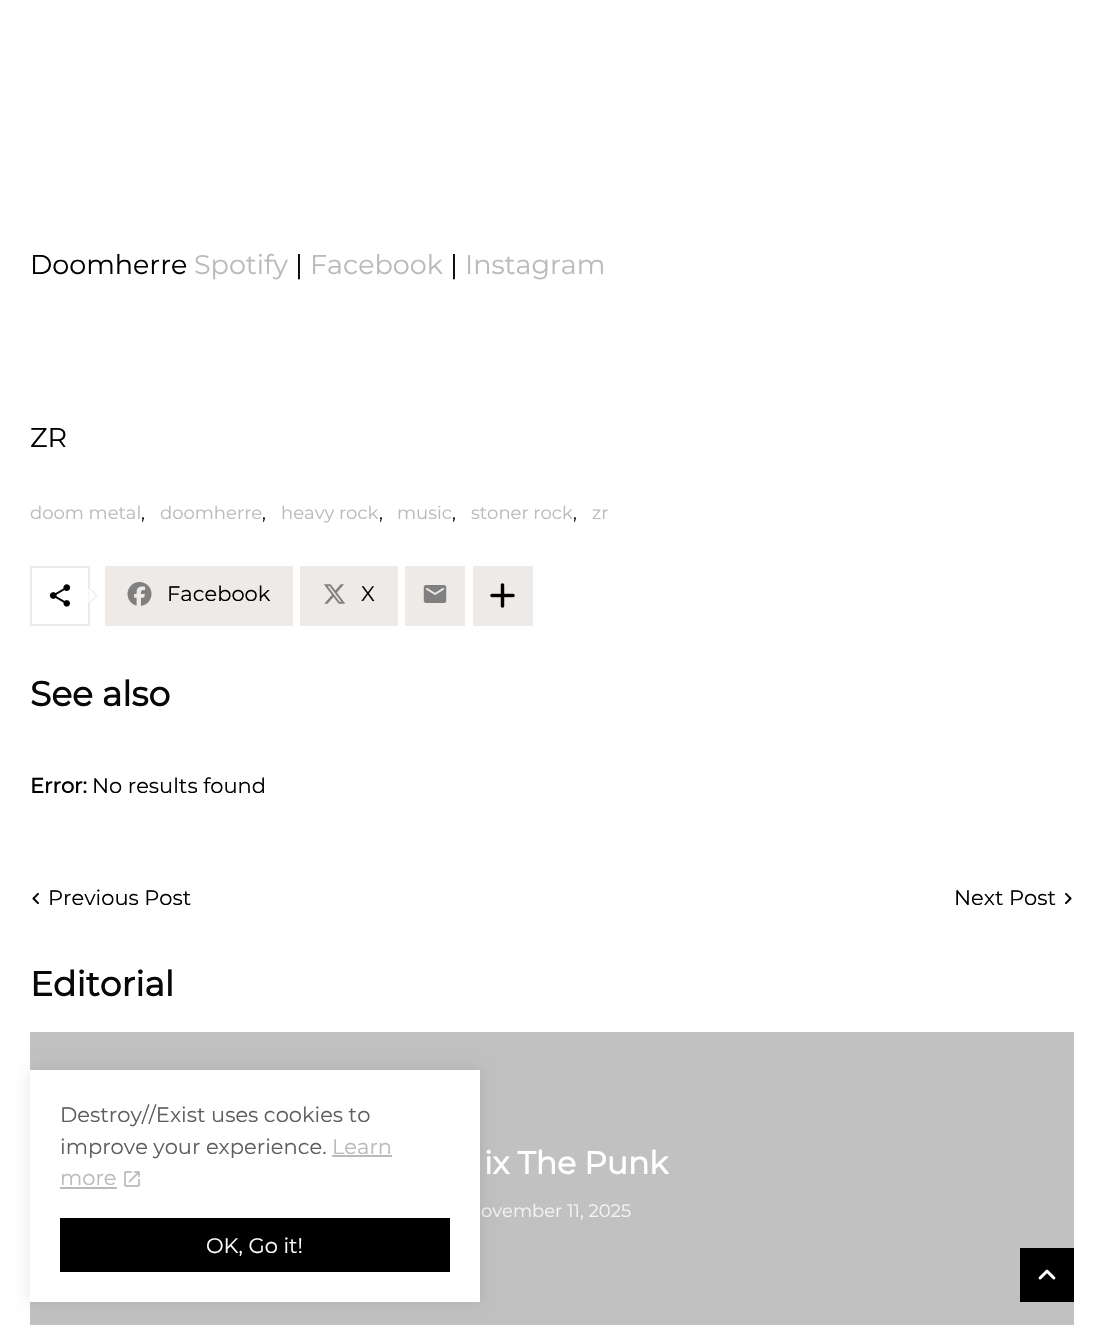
void draw(SkCanvas* canvas) {
	SkPaint paint;
	paint.setAntiAlias(true);
	auto svgPath = [&](const char* data, bool evenOdd = false) {
		SkPath result = *SkParsePath::FromSVGString(data);
		if (evenOdd) result.setFillType(SkPathFillType::kEvenOdd);
		return result;
	};
	canvas->clear(0xffffffff);
	SkFont f1(fontMgr->matchFamilyStyle("Montserrat", SkFontStyle(100, SkFontStyle::kNormal_Width, SkFontStyle::kUpright_Slant)), 27);
	f1.setSubpixel(true);
	paint.setColor(0xff000000);
	canvas->drawString("Doomherre", 30, 274, f1, paint);
	paint.setColor(0xffbababa);
	canvas->drawString("Spotify", 194, 274, f1, paint);
	paint.setColor(0xff000000);
	canvas->drawString("|", 295, 274, f1, paint);
	paint.setColor(0xffbababa);
	canvas->drawString("Facebook", 310, 274, f1, paint);
	paint.setColor(0xff000000);
	canvas->drawString("|", 450, 274, f1, paint);
	paint.setColor(0xffbababa);
	canvas->drawString("Instagram", 465, 274, f1, paint);
	paint.setColor(0xff000000);
	canvas->drawString("ZR", 30, 447, f1, paint);
	SkFont f2(fontMgr->matchFamilyStyle("Montserrat", SkFontStyle(100, SkFontStyle::kNormal_Width, SkFontStyle::kUpright_Slant)), 18);
	f2.setSubpixel(true);
	paint.setColor(0xffbababa);
	canvas->drawString("doom metal", 30, 519, f2, paint);
	paint.setColor(0xff000000);
	canvas->drawString(",", 141, 519, f2, paint);
	paint.setColor(0xffbababa);
	canvas->drawString("doomherre", 160, 519, f2, paint);
	paint.setColor(0xff000000);
	canvas->drawString(",", 262, 519, f2, paint);
	paint.setColor(0xffbababa);
	canvas->drawString("heavy rock", 281, 519, f2, paint);
	paint.setColor(0xff000000);
	canvas->drawString(",", 379, 519, f2, paint);
	paint.setColor(0xffbababa);
	canvas->drawString("music", 397, 519, f2, paint);
	paint.setColor(0xff000000);
	canvas->drawString(",", 452, 519, f2, paint);
	paint.setColor(0xffbababa);
	canvas->drawString("stoner rock", 471, 519, f2, paint);
	paint.setColor(0xff000000);
	canvas->drawString(",", 573, 519, f2, paint);
	paint.setColor(0xffbababa);
	canvas->drawString("zr", 592, 519, f2, paint);
	paint.setStroke(true);
	paint.setStrokeWidth(2);
	paint.setColor(0xffeaeaea);
	canvas->drawRect(SkRect::MakeXYWH(31, 567, 58, 58), paint);
	canvas->drawImageRect(SkImages::DeferredFromEncodedData(SkData::MakeFromFileName("img1.png")), SkRect::MakeXYWH(49, 584, 22, 23), SkSamplingOptions());
	paint.setStroke(false);
	canvas->drawPath(svgPath("M88.5 604.5V586.5L97.5 595.5Z"), paint);
	paint.setColor(0xffffffff);
	canvas->drawPath(svgPath("M88.5 603V588L96 595.5Z"), paint);
	paint.setColor(0xffeeeae7);
	canvas->drawRect(SkRect::MakeXYWH(105, 566, 188, 60), paint);
	canvas->drawImageRect(SkImages::DeferredFromEncodedData(SkData::MakeFromFileName("img2.png")), SkRect::MakeXYWH(127, 582, 25, 24), SkSamplingOptions());
	SkFont f3(fontMgr->matchFamilyStyle("Montserrat", SkFontStyle(100, SkFontStyle::kNormal_Width, SkFontStyle::kUpright_Slant)), 21);
	f3.setSubpixel(true);
	paint.setColor(0xff000000);
	canvas->drawString("Facebook", 167, 601, f3, paint);
	paint.setColor(0xffeeeae7);
	canvas->drawRect(SkRect::MakeXYWH(300, 566, 98, 60), paint);
	canvas->drawImageRect(SkImages::DeferredFromEncodedData(SkData::MakeFromFileName("img3.png")), SkRect::MakeXYWH(324, 584, 22, 20), SkSamplingOptions());
	paint.setColor(0xff000000);
	canvas->drawString("X", 361, 601, f3, paint);
	paint.setColor(0xffeeeae7);
	canvas->drawRect(SkRect::MakeXYWH(405, 566, 60, 60), paint);
	canvas->drawImageRect(SkImages::DeferredFromEncodedData(SkData::MakeFromFileName("img4.png")), SkRect::MakeXYWH(423, 585, 24, 18), SkSamplingOptions());
	canvas->drawRect(SkRect::MakeXYWH(473, 566, 60, 60), paint);
	canvas->drawImageRect(SkImages::DeferredFromEncodedData(SkData::MakeFromFileName("img5.png")), SkRect::MakeXYWH(490, 583, 25, 25), SkSamplingOptions());
	SkFont f4(fontMgr->matchFamilyStyle("Montserrat", SkFontStyle::Bold()), 34.5);
	f4.setSubpixel(true);
	paint.setColor(0xff080808);
	canvas->drawString("See also", 30, 706, f4, paint);
	SkFont f5(fontMgr->matchFamilyStyle("Montserrat", SkFontStyle::Bold()), 21);
	f5.setSubpixel(true);
	paint.setColor(0xff000000);
	canvas->drawString("Error:", 30, 793, f5, paint);
	canvas->drawString("No results found", 92, 793, f3, paint);
	canvas->drawImageRect(SkImages::DeferredFromEncodedData(SkData::MakeFromFileName("img6.png")), SkRect::MakeXYWH(32, 893, 7, 11), SkSamplingOptions());
	canvas->drawString("Previous Post", 48, 905, f3, paint);
	canvas->drawString("Next Post", 954, 905, f3, paint);
	canvas->drawImageRect(SkImages::DeferredFromEncodedData(SkData::MakeFromFileName("img7.png")), SkRect::MakeXYWH(1065, 893, 7, 11), SkSamplingOptions());
	paint.setColor(0xff080808);
	canvas->drawString("Editorial", 30, 996, f4, paint);
	paint.setColor(0xffc1c1c1);
	canvas->drawRect(SkRect::MakeXYWH(30, 1032, 1044, 293), paint);
	SkFont f6(fontMgr->matchFamilyStyle("Montserrat", SkFontStyle::Bold()), 31.5);
	f6.setSubpixel(true);
	paint.setColor(0xffffffff);
	canvas->drawString("ix The Punk", 484, 1174, f6, paint);
	paint.setColor(0xfff4f4f4);
	canvas->drawString("ovember 11, 2025", 481, 1217, f2, paint);
	paint.setColor(0x1a000000);
	paint.setMaskFilter(SkMaskFilter::MakeBlur(kNormal_SkBlurStyle, 7.5));
	canvas->drawRect(SkRect::MakeXYWH(30, 1070, 450, 232), paint);
	paint.setMaskFilter(nullptr);
	paint.setColor(0xffffffff);
	canvas->drawRect(SkRect::MakeXYWH(30, 1070, 450, 232), paint);
	paint.setColor(0xff5e5e5e);
	canvas->drawString("Destroy//Exist uses cookies to", 60, 1122, f3, paint);
	canvas->drawString("improve your experience.", 60, 1154, f3, paint);
	paint.setColor(0xffbababa);
	canvas->drawString("Learn", 332, 1154, f3, paint);
	canvas->drawRect(SkRect::MakeXYWH(332, 1155, 60, 2), paint);
	canvas->drawString("more", 60, 1185, f3, paint);
	canvas->drawRect(SkRect::MakeXYWH(60, 1187, 57, 2), paint);
	canvas->drawImageRect(SkImages::DeferredFromEncodedData(SkData::MakeFromFileName("img8.png")), SkRect::MakeXYWH(124, 1171, 16, 16), SkSamplingOptions());
	paint.setColor(0xff000000);
	canvas->drawRect(SkRect::MakeXYWH(60, 1218, 390, 54), paint);
	paint.setColor(0xffffffff);
	canvas->drawString("OK, Go it!", 206, 1253, f3, paint);
	paint.setColor(0xff000000);
	canvas->drawRect(SkRect::MakeXYWH(1020, 1248, 54, 54), paint);
	canvas->drawImageRect(SkImages::DeferredFromEncodedData(SkData::MakeFromFileName("img9.png")), SkRect::MakeXYWH(1038, 1269, 18, 11), SkSamplingOptions());
}
